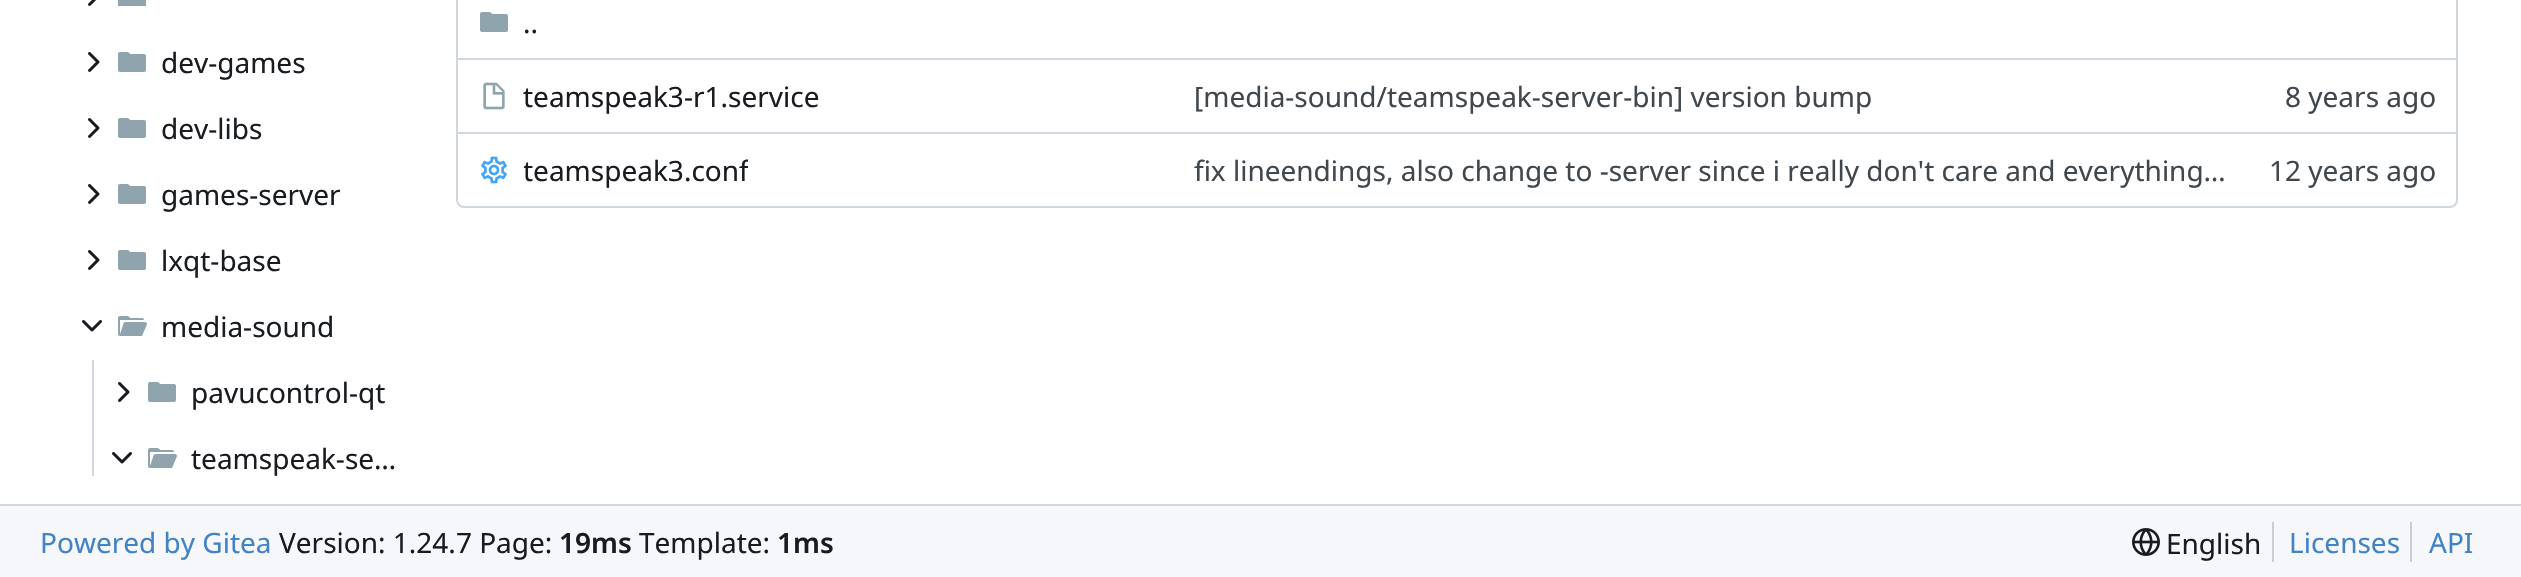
void draw(SkCanvas* canvas) {
	SkPaint paint;
	paint.setAntiAlias(true);
	canvas->clear(0xffffffff);
	canvas->drawImageRect(SkImages::DeferredFromEncodedData(SkData::MakeFromFileName("img1.png")), SkRect::MakeXYWH(88, 0, 8, 6), SkSamplingOptions());
	paint.setColor(0xff90a4ae);
	canvas->drawRect(SkRect::MakeXYWH(118, 0, 28, 6), paint);
	canvas->drawImageRect(SkImages::DeferredFromEncodedData(SkData::MakeFromFileName("img2.png")), SkRect::MakeXYWH(88, 52, 12, 20), SkSamplingOptions());
	canvas->drawImageRect(SkImages::DeferredFromEncodedData(SkData::MakeFromFileName("img3.png")), SkRect::MakeXYWH(118, 52, 28, 20), SkSamplingOptions());
	SkFont f1(fontMgr->matchFamilyStyle("Noto Sans", SkFontStyle::Normal()), 28);
	f1.setSubpixel(true);
	paint.setColor(0xff181c21);
	canvas->drawString("dev-games", 161, 73, f1, paint);
	canvas->drawImageRect(SkImages::DeferredFromEncodedData(SkData::MakeFromFileName("img2.png")), SkRect::MakeXYWH(88, 118, 12, 20), SkSamplingOptions());
	canvas->drawImageRect(SkImages::DeferredFromEncodedData(SkData::MakeFromFileName("img3.png")), SkRect::MakeXYWH(118, 118, 28, 20), SkSamplingOptions());
	canvas->drawString("dev-libs", 161, 139, f1, paint);
	canvas->drawImageRect(SkImages::DeferredFromEncodedData(SkData::MakeFromFileName("img2.png")), SkRect::MakeXYWH(88, 184, 12, 20), SkSamplingOptions());
	canvas->drawImageRect(SkImages::DeferredFromEncodedData(SkData::MakeFromFileName("img3.png")), SkRect::MakeXYWH(118, 184, 28, 20), SkSamplingOptions());
	canvas->drawString("games-server", 161, 205, f1, paint);
	canvas->drawImageRect(SkImages::DeferredFromEncodedData(SkData::MakeFromFileName("img2.png")), SkRect::MakeXYWH(88, 250, 12, 20), SkSamplingOptions());
	canvas->drawImageRect(SkImages::DeferredFromEncodedData(SkData::MakeFromFileName("img3.png")), SkRect::MakeXYWH(118, 250, 28, 20), SkSamplingOptions());
	canvas->drawString("lxqt-base", 161, 271, f1, paint);
	canvas->drawImageRect(SkImages::DeferredFromEncodedData(SkData::MakeFromFileName("img4.png")), SkRect::MakeXYWH(82, 320, 20, 12), SkSamplingOptions());
	canvas->drawImageRect(SkImages::DeferredFromEncodedData(SkData::MakeFromFileName("img5.png")), SkRect::MakeXYWH(118, 316, 29, 20), SkSamplingOptions());
	canvas->drawString("media-sound", 161, 337, f1, paint);
	paint.setColor(0xffd0d7de);
	canvas->drawRect(SkRect::MakeXYWH(92, 360, 2, 116), paint);
	canvas->drawImageRect(SkImages::DeferredFromEncodedData(SkData::MakeFromFileName("img2.png")), SkRect::MakeXYWH(118, 382, 12, 20), SkSamplingOptions());
	canvas->drawImageRect(SkImages::DeferredFromEncodedData(SkData::MakeFromFileName("img3.png")), SkRect::MakeXYWH(148, 382, 28, 20), SkSamplingOptions());
	paint.setColor(0xff181c21);
	canvas->drawString("pavucontrol-qt", 191, 403, f1, paint);
	canvas->drawImageRect(SkImages::DeferredFromEncodedData(SkData::MakeFromFileName("img4.png")), SkRect::MakeXYWH(112, 452, 20, 12), SkSamplingOptions());
	canvas->drawImageRect(SkImages::DeferredFromEncodedData(SkData::MakeFromFileName("img5.png")), SkRect::MakeXYWH(148, 448, 29, 20), SkSamplingOptions());
	canvas->drawString("teamspeak-se…", 191, 469, f1, paint);
	paint.setStroke(true);
	paint.setStrokeWidth(2);
	paint.setColor(0xffd0d7de);
	canvas->drawRoundRect(SkRect::MakeXYWH(457, -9, 2000, 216), 7, 7, paint);
	canvas->drawImageRect(SkImages::DeferredFromEncodedData(SkData::MakeFromFileName("img3.png")), SkRect::MakeXYWH(480, 12, 28, 20), SkSamplingOptions());
	paint.setStroke(false);
	paint.setColor(0xff181c21);
	canvas->drawString("..", 523, 33, f1, paint);
	paint.setColor(0xffd0d7de);
	canvas->drawRect(SkRect::MakeXYWH(458, 58, 1790, 2), paint);
	canvas->drawImageRect(SkImages::DeferredFromEncodedData(SkData::MakeFromFileName("img6.png")), SkRect::MakeXYWH(483, 82, 22, 28), SkSamplingOptions());
	paint.setColor(0xff181c21);
	canvas->drawString("teamspeak3-r1.service", 523, 107, f1, paint);
	paint.setColor(0xff40474d);
	canvas->drawString("[media-sound/teamspeak-server-bin] version bump", 1194, 107, f1, paint);
	paint.setColor(0xffd0d7de);
	canvas->drawRect(SkRect::MakeXYWH(2248, 58, 208, 2), paint);
	paint.setColor(0xff40474d);
	canvas->drawString("8 years ago", 2285, 107, f1, paint);
	paint.setColor(0xffd0d7de);
	canvas->drawRect(SkRect::MakeXYWH(458, 132, 1790, 2), paint);
	canvas->drawImageRect(SkImages::DeferredFromEncodedData(SkData::MakeFromFileName("img7.png")), SkRect::MakeXYWH(481, 156, 26, 28), SkSamplingOptions());
	canvas->save();
	canvas->clipRect(SkRect::MakeXYWH(524, 150, 224, 40));
	paint.setColor(0xff181c21);
	canvas->drawString("teamspeak3.conf", 523, 181, f1, paint);
	canvas->restore();
	paint.setColor(0xff40474d);
	canvas->drawString("fix lineendings, also change to -server since i really don't care and everything…", 1194, 181, f1, paint);
	paint.setColor(0xffd0d7de);
	canvas->drawRect(SkRect::MakeXYWH(2248, 132, 208, 2), paint);
	paint.setColor(0xff40474d);
	canvas->drawString("12 years ago", 2269, 181, f1, paint);
	paint.setColor(0xfff6f7fa);
	canvas->drawRect(SkRect::MakeXYWH(0, 506, 2521, 71), paint);
	paint.setColor(0xffd0d7de);
	canvas->drawRect(SkRect::MakeXYWH(0, 504, 2521, 2), paint);
	paint.setColor(0xff4183c4);
	canvas->drawString("Powered by Gitea", 40, 553, f1, paint);
	paint.setColor(0xff181c21);
	canvas->drawString("Version: 1.24.7 Page:", 279, 553, f1, paint);
	SkFont f2(fontMgr->matchFamilyStyle("Noto Sans", SkFontStyle(600, SkFontStyle::kNormal_Width, SkFontStyle::kUpright_Slant)), 28);
	f2.setSubpixel(true);
	canvas->drawString("19ms", 559, 553, f2, paint);
	canvas->drawString("Template:", 639, 553, f1, paint);
	canvas->drawString("1ms", 777, 553, f2, paint);
	canvas->drawImageRect(SkImages::DeferredFromEncodedData(SkData::MakeFromFileName("img8.png")), SkRect::MakeXYWH(2132, 528, 28, 28), SkSamplingOptions());
	canvas->drawString("English", 2166, 554, f1, paint);
	paint.setColor(0xffc7ced5);
	canvas->drawRect(SkRect::MakeXYWH(2272, 522, 2, 40), paint);
	paint.setColor(0xff4183c4);
	canvas->drawString("Licenses", 2289, 553, f1, paint);
	paint.setColor(0xffc7ced5);
	canvas->drawRect(SkRect::MakeXYWH(2410, 522, 2, 40), paint);
	paint.setColor(0xff4183c4);
	canvas->drawString("API", 2429, 553, f1, paint);
}
